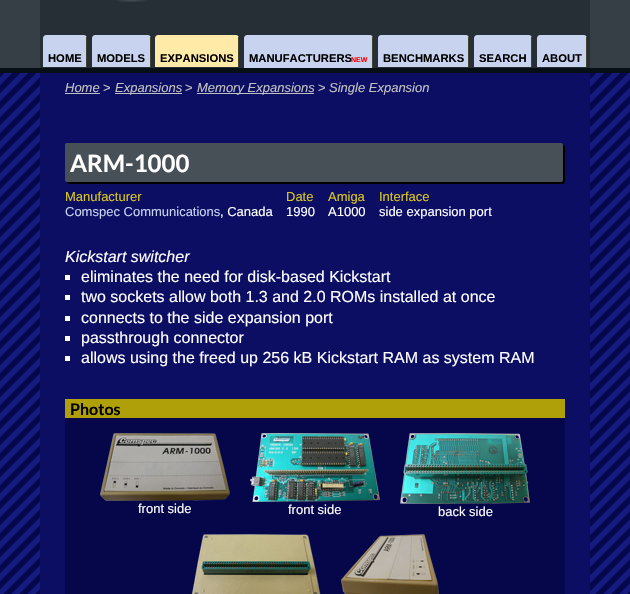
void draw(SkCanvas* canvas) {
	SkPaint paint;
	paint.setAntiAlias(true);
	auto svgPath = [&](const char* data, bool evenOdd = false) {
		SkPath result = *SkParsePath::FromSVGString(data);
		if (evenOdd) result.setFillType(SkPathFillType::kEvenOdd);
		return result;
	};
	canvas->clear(0xffffffff);
	canvas->drawImageRect(SkImages::DeferredFromEncodedData(SkData::MakeFromFileName("img1.png")), SkRect::MakeXYWH(0, 73, 630, 521), SkSamplingOptions());
	paint.setColor(0xff373f46);
	canvas->drawRect(SkRect::MakeXYWH(0, 0, 630, 68), paint);
	paint.setColor(0xff070f16);
	canvas->drawRect(SkRect::MakeXYWH(0, 68, 630, 5), paint);
	paint.setColor(0xff272f36);
	canvas->drawRect(SkRect::MakeXYWH(40, 0, 550, 68), paint);
	canvas->drawImageRect(SkImages::DeferredFromEncodedData(SkData::MakeFromFileName("img2.png")), SkRect::MakeXYWH(116, 0, 31, 2), SkSamplingOptions());
	paint.setColor(0xffc7d3ef);
	canvas->drawPath(svgPath("M46 35H84C85.5 35 87 36.5 87 38V67H43V38C43 36.5 44.5 35 46 35Z"), paint);
	paint.setColor(0xff42432d);
	canvas->drawRect(SkRect::MakeXYWH(86, 37, 1, 30), paint);
	SkFont f1(fontMgr->matchFamilyStyle("Liberation Sans", SkFontStyle::Bold()), 11.25);
	f1.setSubpixel(true);
	paint.setColor(0xff000000);
	canvas->drawString("HOME", 48, 62, f1, paint);
	paint.setColor(0xffc7d3ef);
	canvas->drawPath(svgPath("M95 35H148C149.5 35 151 36.5 151 38V67H92V38C92 36.5 93.5 35 95 35Z"), paint);
	paint.setColor(0xff42432d);
	canvas->drawRect(SkRect::MakeXYWH(150, 37, 1, 30), paint);
	paint.setColor(0xff000000);
	canvas->drawString("MODELS", 97, 62, f1, paint);
	paint.setColor(0xffffeaa7);
	canvas->drawPath(svgPath("M158 35H236C237.5 35 239 36.5 239 38V67H155V38C155 36.5 156.5 35 158 35Z"), paint);
	paint.setColor(0xff42432d);
	canvas->drawRect(SkRect::MakeXYWH(238, 37, 1, 30), paint);
	paint.setColor(0xff000000);
	canvas->drawString("EXPANSIONS", 160, 62, f1, paint);
	paint.setColor(0xffc7d3ef);
	canvas->drawPath(svgPath("M247 35H370C371.5 35 373 36.5 373 38V68H244V38C244 36.5 245.5 35 247 35Z"), paint);
	paint.setColor(0xff42432d);
	canvas->drawRect(SkRect::MakeXYWH(372, 37, 1, 31), paint);
	paint.setColor(0xff000000);
	canvas->drawString("MANUFACTURERS", 249, 62, f1, paint);
	SkFont f2(fontMgr->matchFamilyStyle("Liberation Sans", SkFontStyle::Bold()), 7);
	f2.setSubpixel(true);
	paint.setColor(0xffff0000);
	canvas->drawString("NEW", 351, 62, f2, paint);
	paint.setColor(0xffc7d3ef);
	canvas->drawPath(svgPath("M381 35H466C467.5 35 469 36.5 469 38V67H378V38C378 36.5 379.5 35 381 35Z"), paint);
	paint.setColor(0xff42432d);
	canvas->drawRect(SkRect::MakeXYWH(468, 37, 1, 30), paint);
	paint.setColor(0xff000000);
	canvas->drawString("BENCHMARKS", 383, 62, f1, paint);
	paint.setColor(0xffc7d3ef);
	canvas->drawPath(svgPath("M477 35H529C530.5 35 532 36.5 532 38V67H474V38C474 36.5 475.5 35 477 35Z"), paint);
	paint.setColor(0xff42432d);
	canvas->drawRect(SkRect::MakeXYWH(531, 37, 1, 30), paint);
	paint.setColor(0xff000000);
	canvas->drawString("SEARCH", 479, 62, f1, paint);
	paint.setColor(0xffc7d3ef);
	canvas->drawPath(svgPath("M540 35H584C585.5 35 587 36.5 587 38V67H537V38C537 36.5 538.5 35 540 35Z"), paint);
	paint.setColor(0xff42432d);
	canvas->drawRect(SkRect::MakeXYWH(586, 37, 1, 30), paint);
	paint.setColor(0xff000000);
	canvas->drawString("ABOUT", 542, 62, f1, paint);
	paint.setColor(0xff0c0e64);
	canvas->drawRect(SkRect::MakeXYWH(40, 73, 550, 521), paint);
	SkFont f3(fontMgr->matchFamilyStyle("Liberation Sans", SkFontStyle::Italic()), 13);
	f3.setSubpixel(true);
	paint.setColor(0xffc0c0c0);
	canvas->drawString("Home", 65, 92, f3, paint);
	canvas->drawRect(SkRect::MakeXYWH(65, 93, 35, 1), paint);
	SkFont f4(fontMgr->matchFamilyStyle("Liberation Sans", SkFontStyle::Normal()), 13);
	f4.setSubpixel(true);
	canvas->drawString(">", 103, 92, f4, paint);
	canvas->drawRect(SkRect::MakeXYWH(115, 93, 67, 1), paint);
	canvas->drawString("Expansions", 115, 92, f3, paint);
	canvas->drawString(">", 185, 92, f4, paint);
	canvas->drawRect(SkRect::MakeXYWH(197, 93, 117, 1), paint);
	canvas->drawString("Memory Expansions", 197, 92, f3, paint);
	canvas->drawString(">", 318, 92, f4, paint);
	canvas->drawString("Single Expansion", 329, 92, f3, paint);
	paint.setColor(0xff000000);
	canvas->drawPath(svgPath("M67 182C67 183 68 184 69 184H563C564 184 565 183 565 182V147C565 146 564 145 563 145V180C563 181 562 182 561 182Z"), paint);
	paint.setColor(0xff485057);
	canvas->drawRoundRect(SkRect::MakeXYWH(65, 143, 498, 39), 2, 2, paint);
	SkFont f5(fontMgr->matchFamilyStyle("Lato", SkFontStyle::Bold()), 24);
	f5.setSubpixel(true);
	paint.setColor(0xffffffff);
	canvas->drawString("ARM-1000", 70, 172, f5, paint);
	paint.setColor(0xffd9c71d);
	canvas->drawString("Manufacturer", 65, 201, f4, paint);
	paint.setColor(0xffc7d3ef);
	canvas->drawString("Comspec Communications", 65, 216, f4, paint);
	paint.setColor(0xffffffff);
	canvas->drawString(", Canada", 220, 216, f4, paint);
	paint.setColor(0xffd9c71d);
	canvas->drawString("Date", 286, 201, f4, paint);
	paint.setColor(0xffffffff);
	canvas->drawString("1990", 286, 216, f4, paint);
	paint.setColor(0xffd9c71d);
	canvas->drawString("Amiga", 328, 201, f4, paint);
	paint.setColor(0xffffffff);
	canvas->drawString("A1000", 328, 216, f4, paint);
	paint.setColor(0xffd9c71d);
	canvas->drawString("Interface", 379, 201, f4, paint);
	paint.setColor(0xffffffff);
	canvas->drawString("side expansion port", 379, 216, f4, paint);
	SkFont f6(fontMgr->matchFamilyStyle("Liberation Sans", SkFontStyle::Italic()), 16);
	f6.setSubpixel(true);
	canvas->drawString("Kickstart switcher", 65, 262, f6, paint);
	canvas->drawRect(SkRect::MakeXYWH(65, 275, 5, 5), paint);
	SkFont f7(fontMgr->matchFamilyStyle("Liberation Sans", SkFontStyle::Normal()), 16);
	f7.setSubpixel(true);
	canvas->drawString("eliminates the need for disk-based Kickstart", 81, 282, f7, paint);
	canvas->drawRect(SkRect::MakeXYWH(65, 295, 5, 5), paint);
	canvas->drawString("two sockets allow both 1.3 and 2.0 ROMs installed at once", 81, 302, f7, paint);
	canvas->drawRect(SkRect::MakeXYWH(65, 316, 5, 5), paint);
	canvas->drawString("connects to the side expansion port", 81, 323, f7, paint);
	canvas->drawRect(SkRect::MakeXYWH(65, 336, 5, 5), paint);
	canvas->drawString("passthrough connector", 81, 343, f7, paint);
	canvas->drawRect(SkRect::MakeXYWH(65, 356, 5, 5), paint);
	canvas->drawString("allows using the freed up 256 kB Kickstart RAM as system RAM", 81, 363, f7, paint);
	paint.setColor(0xff05074a);
	canvas->drawRect(SkRect::MakeXYWH(65, 418, 500, 176), paint);
	paint.setColor(0xffaf9f09);
	canvas->drawRect(SkRect::MakeXYWH(65, 399, 500, 19), paint);
	SkFont f8(fontMgr->matchFamilyStyle("Lato", SkFontStyle::Bold()), 16);
	f8.setSubpixel(true);
	paint.setColor(0xff000000);
	canvas->drawString("Photos", 70, 415, f8, paint);
	canvas->drawImageRect(SkImages::DeferredFromEncodedData(SkData::MakeFromFileName("img3.png")), SkRect::MakeXYWH(100, 433, 130, 68), SkSamplingOptions());
	paint.setColor(0xffffffff);
	canvas->drawString("front side", 138, 513, f4, paint);
	canvas->drawImageRect(SkImages::DeferredFromEncodedData(SkData::MakeFromFileName("img4.png")), SkRect::MakeXYWH(250, 433, 130, 69), SkSamplingOptions());
	canvas->drawString("front side", 288, 514, f4, paint);
	canvas->drawImageRect(SkImages::DeferredFromEncodedData(SkData::MakeFromFileName("img5.png")), SkRect::MakeXYWH(400, 433, 130, 71), SkSamplingOptions());
	canvas->drawString("back side", 438, 516, f4, paint);
	canvas->drawImageRect(SkImages::DeferredFromEncodedData(SkData::MakeFromFileName("img6.png")), SkRect::MakeXYWH(191, 534, 130, 60), SkSamplingOptions());
	canvas->drawImageRect(SkImages::DeferredFromEncodedData(SkData::MakeFromFileName("img7.png")), SkRect::MakeXYWH(341, 534, 98, 60), SkSamplingOptions());
}
